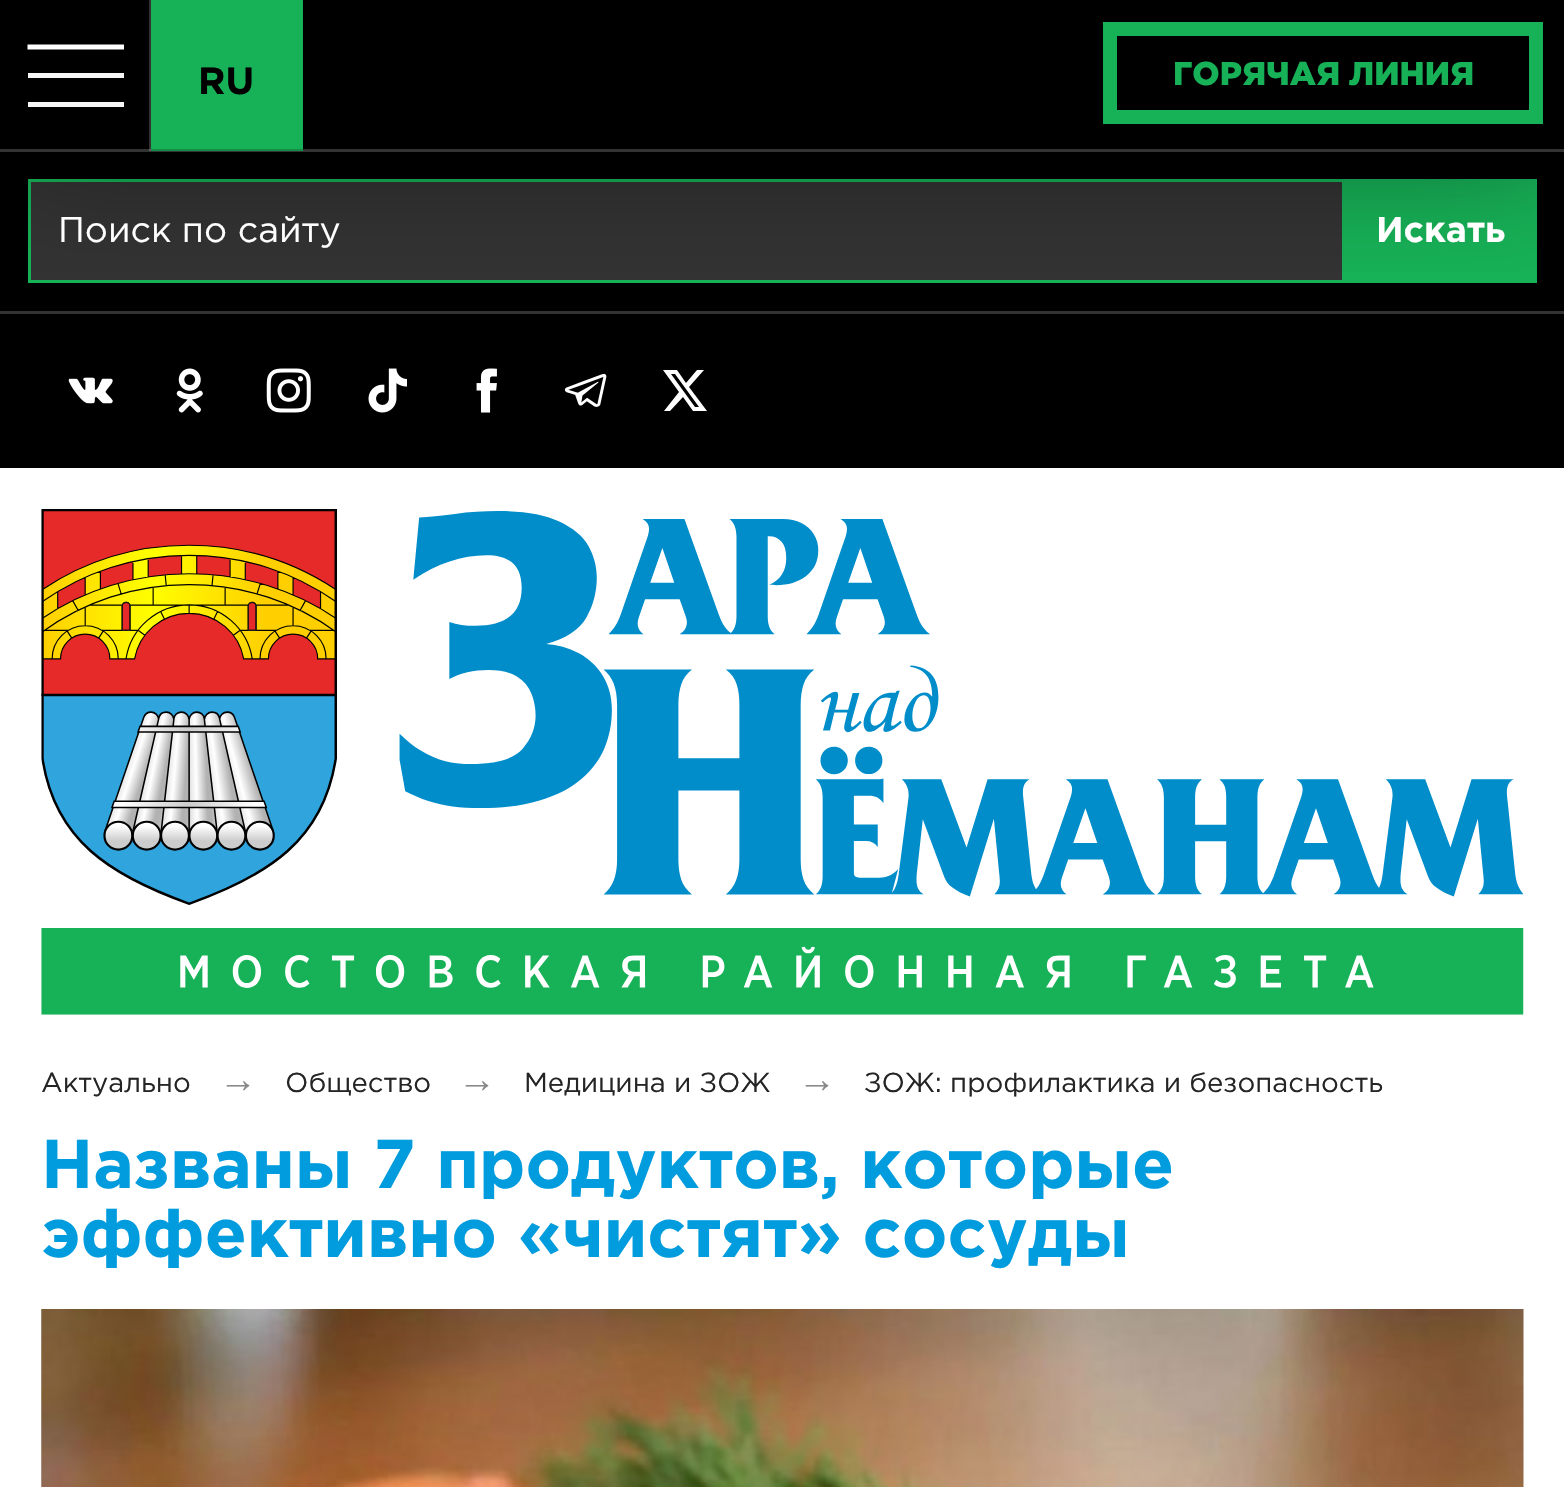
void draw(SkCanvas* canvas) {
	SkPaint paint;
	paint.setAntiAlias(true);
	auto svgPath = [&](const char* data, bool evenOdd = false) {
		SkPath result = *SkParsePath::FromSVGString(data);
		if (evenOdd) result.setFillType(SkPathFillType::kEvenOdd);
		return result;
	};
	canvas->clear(0xffffffff);
	paint.setColor(0xff000000);
	canvas->drawRect(SkRect::MakeXYWH(0, 0, 1564, 468), paint);
	paint.setColor(0xff333333);
	canvas->drawRect(SkRect::MakeXYWH(149, 0, 2, 151), paint);
	canvas->drawRect(SkRect::MakeXYWH(0, 311, 1564, 3), paint);
	canvas->drawRect(SkRect::MakeXYWH(29.5, 180.5, 1314, 101), paint);
	paint.setStroke(true);
	paint.setStrokeWidth(3);
	paint.setColor(0xff17b257);
	canvas->drawRect(SkRect::MakeXYWH(29.5, 180.5, 1314, 101), paint);
	paint.setStroke(false);
	canvas->drawRect(SkRect::MakeXYWH(1345, 179, 192, 104), paint);
	canvas->save();
	canvas->clipRect(SkRect::MakeXYWH(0, 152, 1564, 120));
	paint.setColor(0x80000000);
	paint.setMaskFilter(SkMaskFilter::MakeBlur(kNormal_SkBlurStyle, 69));
	canvas->drawRect(SkRect::MakeXYWH(0, 0, 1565, 151), paint);
	paint.setMaskFilter(nullptr);
	canvas->restore();
	paint.setColor(0xff17b257);
	canvas->drawRect(SkRect::MakeXYWH(151, 0, 152, 149), paint);
	paint.setColor(0xff333333);
	canvas->drawRect(SkRect::MakeXYWH(0, 149, 1564, 3), paint);
	paint.setColor(0xff5c5c5c);
	canvas->drawRect(SkRect::MakeXYWH(149, 149, 3, 2), paint);
	paint.setColor(0xff128e46);
	canvas->drawRect(SkRect::MakeXYWH(151, 149, 152, 2), paint);
	SkFont f1(fontMgr->matchFamilyStyle("Gotham", SkFontStyle::Bold()), 38);
	f1.setSubpixel(true);
	paint.setColor(0xff000000);
	canvas->drawString("RU", 198, 94, f1, paint);
	paint.setStroke(true);
	paint.setStrokeWidth(4.8);
	paint.setColor(0xffffffff);
	canvas->drawPath(svgPath("M27.5 47H124"), paint);
	paint.setStroke(false);
	paint.setColor(0xfff5f5f5);
	canvas->drawRect(SkRect::MakeXYWH(28, 73, 96, 5), paint);
	canvas->drawRect(SkRect::MakeXYWH(28, 102, 96, 5), paint);
	paint.setStroke(true);
	paint.setStrokeWidth(14);
	paint.setColor(0xff17b257);
	canvas->drawRect(SkRect::MakeXYWH(1110, 29, 426, 88), paint);
	SkFont f2(fontMgr->matchFamilyStyle("Gotham", SkFontStyle(900, SkFontStyle::kNormal_Width, SkFontStyle::kUpright_Slant)), 33);
	f2.setSubpixel(true);
	paint.setStroke(false);
	canvas->drawString("ГОРЯЧАЯ ЛИНИЯ", 1173, 85, f2, paint);
	SkFont f3(fontMgr->matchFamilyStyle("Gotham", SkFontStyle::Normal()), 35.75);
	f3.setSubpixel(true);
	paint.setColor(0xffffffff);
	canvas->drawString("Поиск по сайту", 58, 242, f3, paint);
	SkFont f4(fontMgr->matchFamilyStyle("Gotham", SkFontStyle::Bold()), 35.75);
	f4.setSubpixel(true);
	canvas->drawString("Искать", 1376, 242, f4, paint);
	canvas->drawImageRect(SkImages::DeferredFromEncodedData(SkData::MakeFromFileName("img1.png")), SkRect::MakeXYWH(68, 377, 45, 27), SkSamplingOptions());
	canvas->drawImageRect(SkImages::DeferredFromEncodedData(SkData::MakeFromFileName("img2.png")), SkRect::MakeXYWH(176, 368, 27, 45), SkSamplingOptions());
	canvas->drawImageRect(SkImages::DeferredFromEncodedData(SkData::MakeFromFileName("img3.png")), SkRect::MakeXYWH(266, 368, 45, 45), SkSamplingOptions());
	canvas->drawImageRect(SkImages::DeferredFromEncodedData(SkData::MakeFromFileName("img4.png")), SkRect::MakeXYWH(368, 368, 39, 45), SkSamplingOptions());
	canvas->drawImageRect(SkImages::DeferredFromEncodedData(SkData::MakeFromFileName("img5.png")), SkRect::MakeXYWH(476, 368, 21, 45), SkSamplingOptions());
	canvas->drawImageRect(SkImages::DeferredFromEncodedData(SkData::MakeFromFileName("img6.png")), SkRect::MakeXYWH(564, 374, 43, 33), SkSamplingOptions());
	canvas->drawPath(svgPath("M697 370H704L689 387L707 411H693L683 397L670 411H664L679 392L663 370H677L686 383ZM695 407H699L675 374H671Z"), paint);
	canvas->drawImageRect(SkImages::DeferredFromEncodedData(SkData::MakeFromFileName("img7.png")), SkRect::MakeXYWH(41, 509, 1483, 506), SkSamplingOptions());
	SkFont f5(fontMgr->matchFamilyStyle("Gotham", SkFontStyle::Normal()), 27.5);
	f5.setSubpixel(true);
	paint.setColor(0xff252525);
	canvas->drawString("Актуально", 41, 1092, f5, paint);
	SkFont f6(fontMgr->matchFamilyStyle("Liberation Sans", SkFontStyle::Normal()), 38);
	f6.setSubpixel(true);
	paint.setColor(0xff898989);
	canvas->drawString("→", 219, 1092, f6, paint);
	paint.setColor(0xff252525);
	canvas->drawString("Общество", 285, 1092, f5, paint);
	paint.setColor(0xff898989);
	canvas->drawString("→", 458, 1092, f6, paint);
	paint.setColor(0xff252525);
	canvas->drawString("Медицина и ЗОЖ", 524, 1092, f5, paint);
	paint.setColor(0xff898989);
	canvas->drawString("→", 798, 1092, f6, paint);
	paint.setColor(0xff252525);
	canvas->drawString("ЗОЖ: профилактика и безопасность", 864, 1092, f5, paint);
	SkFont f7(fontMgr->matchFamilyStyle("Gotham", SkFontStyle::Bold()), 68.75);
	f7.setSubpixel(true);
	paint.setColor(0xff009cde);
	canvas->drawString("Названы 7 продуктов, которые", 41, 1188, f7, paint);
	canvas->drawString("эффективно «чистят» сосуды", 41, 1257, f7, paint);
	canvas->drawImageRect(SkImages::DeferredFromEncodedData(SkData::MakeFromFileName("img8.png")), SkRect::MakeXYWH(41, 1309, 1483, 178), SkSamplingOptions());
}
